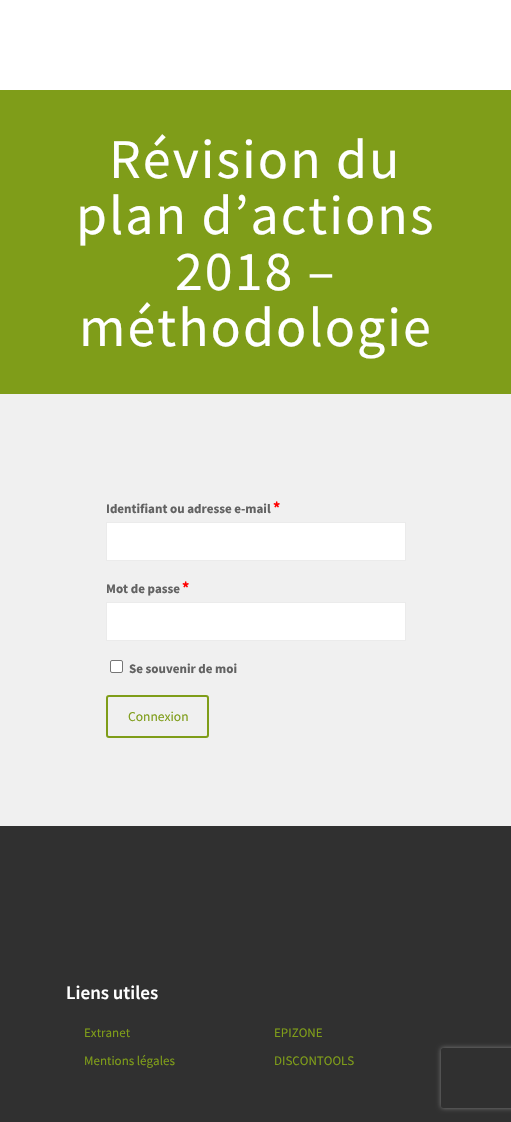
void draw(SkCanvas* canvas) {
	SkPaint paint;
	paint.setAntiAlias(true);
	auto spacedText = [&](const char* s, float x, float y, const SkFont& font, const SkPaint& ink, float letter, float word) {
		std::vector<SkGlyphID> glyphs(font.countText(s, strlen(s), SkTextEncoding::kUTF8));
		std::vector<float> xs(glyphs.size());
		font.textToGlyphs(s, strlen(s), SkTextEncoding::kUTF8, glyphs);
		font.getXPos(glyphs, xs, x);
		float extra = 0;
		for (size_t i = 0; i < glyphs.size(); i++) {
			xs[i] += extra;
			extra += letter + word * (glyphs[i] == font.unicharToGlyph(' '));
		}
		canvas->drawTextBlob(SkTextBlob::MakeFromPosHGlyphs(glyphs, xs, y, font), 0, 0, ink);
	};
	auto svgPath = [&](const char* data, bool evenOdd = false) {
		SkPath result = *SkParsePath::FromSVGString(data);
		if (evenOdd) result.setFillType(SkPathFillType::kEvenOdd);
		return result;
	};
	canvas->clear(0xfff0f0f0);
	paint.setColor(0xffffffff);
	canvas->drawRect(SkRect::MakeXYWH(0, 0, 511, 90), paint);
	paint.setColor(0xff7f9d19);
	canvas->drawRect(SkRect::MakeXYWH(0, 90, 511, 304), paint);
	SkFont f1(fontMgr->matchFamilyStyle("Source Sans Pro", SkFontStyle::Normal()), 56);
	f1.setSubpixel(true);
	paint.setColor(0xffffffff);
	spacedText("Révision du", 109, 178, f1, paint, 2, 0);
	spacedText("plan d’actions", 76, 234, f1, paint, 2, 0);
	spacedText("2018 –", 175, 290, f1, paint, 2, 0);
	spacedText("méthodologie", 79, 346, f1, paint, 2, 0);
	SkFont f2(fontMgr->matchFamilyStyle("Source Sans Pro", SkFontStyle::Bold()), 13);
	f2.setSubpixel(true);
	paint.setColor(0xff626262);
	canvas->drawString("Identifiant ou adresse e-mail", 106, 513, f2, paint);
	SkFont f3(fontMgr->matchFamilyStyle("Source Sans Pro", SkFontStyle::Bold()), 16);
	f3.setSubpixel(true);
	paint.setColor(0xffff0000);
	canvas->drawString("*", 273, 513, f3, paint);
	paint.setColor(0xffffffff);
	canvas->drawRect(SkRect::MakeXYWH(106.5, 522.5, 299, 38), paint);
	paint.setStroke(true);
	paint.setStrokeWidth(1);
	paint.setColor(0xffebebeb);
	canvas->drawRect(SkRect::MakeXYWH(106.5, 522.5, 299, 38), paint);
	paint.setStroke(false);
	paint.setColor(0xff626262);
	canvas->drawString("Mot de passe", 106, 593, f2, paint);
	paint.setColor(0xffff0000);
	canvas->drawString("*", 182, 593, f3, paint);
	paint.setColor(0xffffffff);
	canvas->drawRect(SkRect::MakeXYWH(106.5, 602.5, 299, 38), paint);
	paint.setStroke(true);
	paint.setColor(0xffebebeb);
	canvas->drawRect(SkRect::MakeXYWH(106.5, 602.5, 299, 38), paint);
	paint.setStroke(false);
	paint.setColor(0xffffffff);
	canvas->drawRoundRect(SkRect::MakeXYWH(110.5, 660.5, 12, 12), 1.5, 1.5, paint);
	paint.setStroke(true);
	paint.setColor(0xff767676);
	canvas->drawRoundRect(SkRect::MakeXYWH(110.5, 660.5, 12, 12), 1.5, 1.5, paint);
	paint.setStroke(false);
	paint.setColor(0xff626262);
	canvas->drawString("Se souvenir de moi", 129, 673, f2, paint);
	paint.setStroke(true);
	paint.setStrokeWidth(2);
	paint.setColor(0xff7f9d19);
	canvas->drawRoundRect(SkRect::MakeXYWH(107, 696, 101, 41), 2, 2, paint);
	SkFont f4(fontMgr->matchFamilyStyle("Source Sans Pro", SkFontStyle::Normal()), 13.5);
	f4.setSubpixel(true);
	paint.setStroke(false);
	canvas->drawString("Connexion", 128, 721, f4, paint);
	paint.setColor(0xff303030);
	canvas->drawRect(SkRect::MakeXYWH(0, 826, 511, 296), paint);
	SkFont f5(fontMgr->matchFamilyStyle("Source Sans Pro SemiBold", SkFontStyle(600, SkFontStyle::kNormal_Width, SkFontStyle::kUpright_Slant)), 19);
	f5.setSubpixel(true);
	paint.setColor(0xffffffff);
	canvas->drawString("Liens utiles", 66, 999, f5, paint);
	SkFont f6(fontMgr->matchFamilyStyle("Source Sans Pro", SkFontStyle::Normal()), 13);
	f6.setSubpixel(true);
	paint.setColor(0xff7f9d19);
	canvas->drawString("Extranet", 84, 1037, f6, paint);
	canvas->drawString("Mentions légales", 84, 1065, f6, paint);
	canvas->drawString("EPIZONE", 274, 1037, f6, paint);
	canvas->drawString("DISCONTOOLS", 274, 1065, f6, paint);
	canvas->save();
	canvas->clipPath(svgPath("M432 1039H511V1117H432ZM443 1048H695C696 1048 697 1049 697 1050V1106C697 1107 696 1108 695 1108H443C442 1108 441 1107 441 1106V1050C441 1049 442 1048 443 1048Z", true), true);
	paint.setColor(0xff808080);
	paint.setMaskFilter(SkMaskFilter::MakeBlur(kNormal_SkBlurStyle, 2.5));
	canvas->drawRoundRect(SkRect::MakeXYWH(441, 1048, 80, 60), 2, 2, paint);
	paint.setMaskFilter(nullptr);
	canvas->restore();
}
